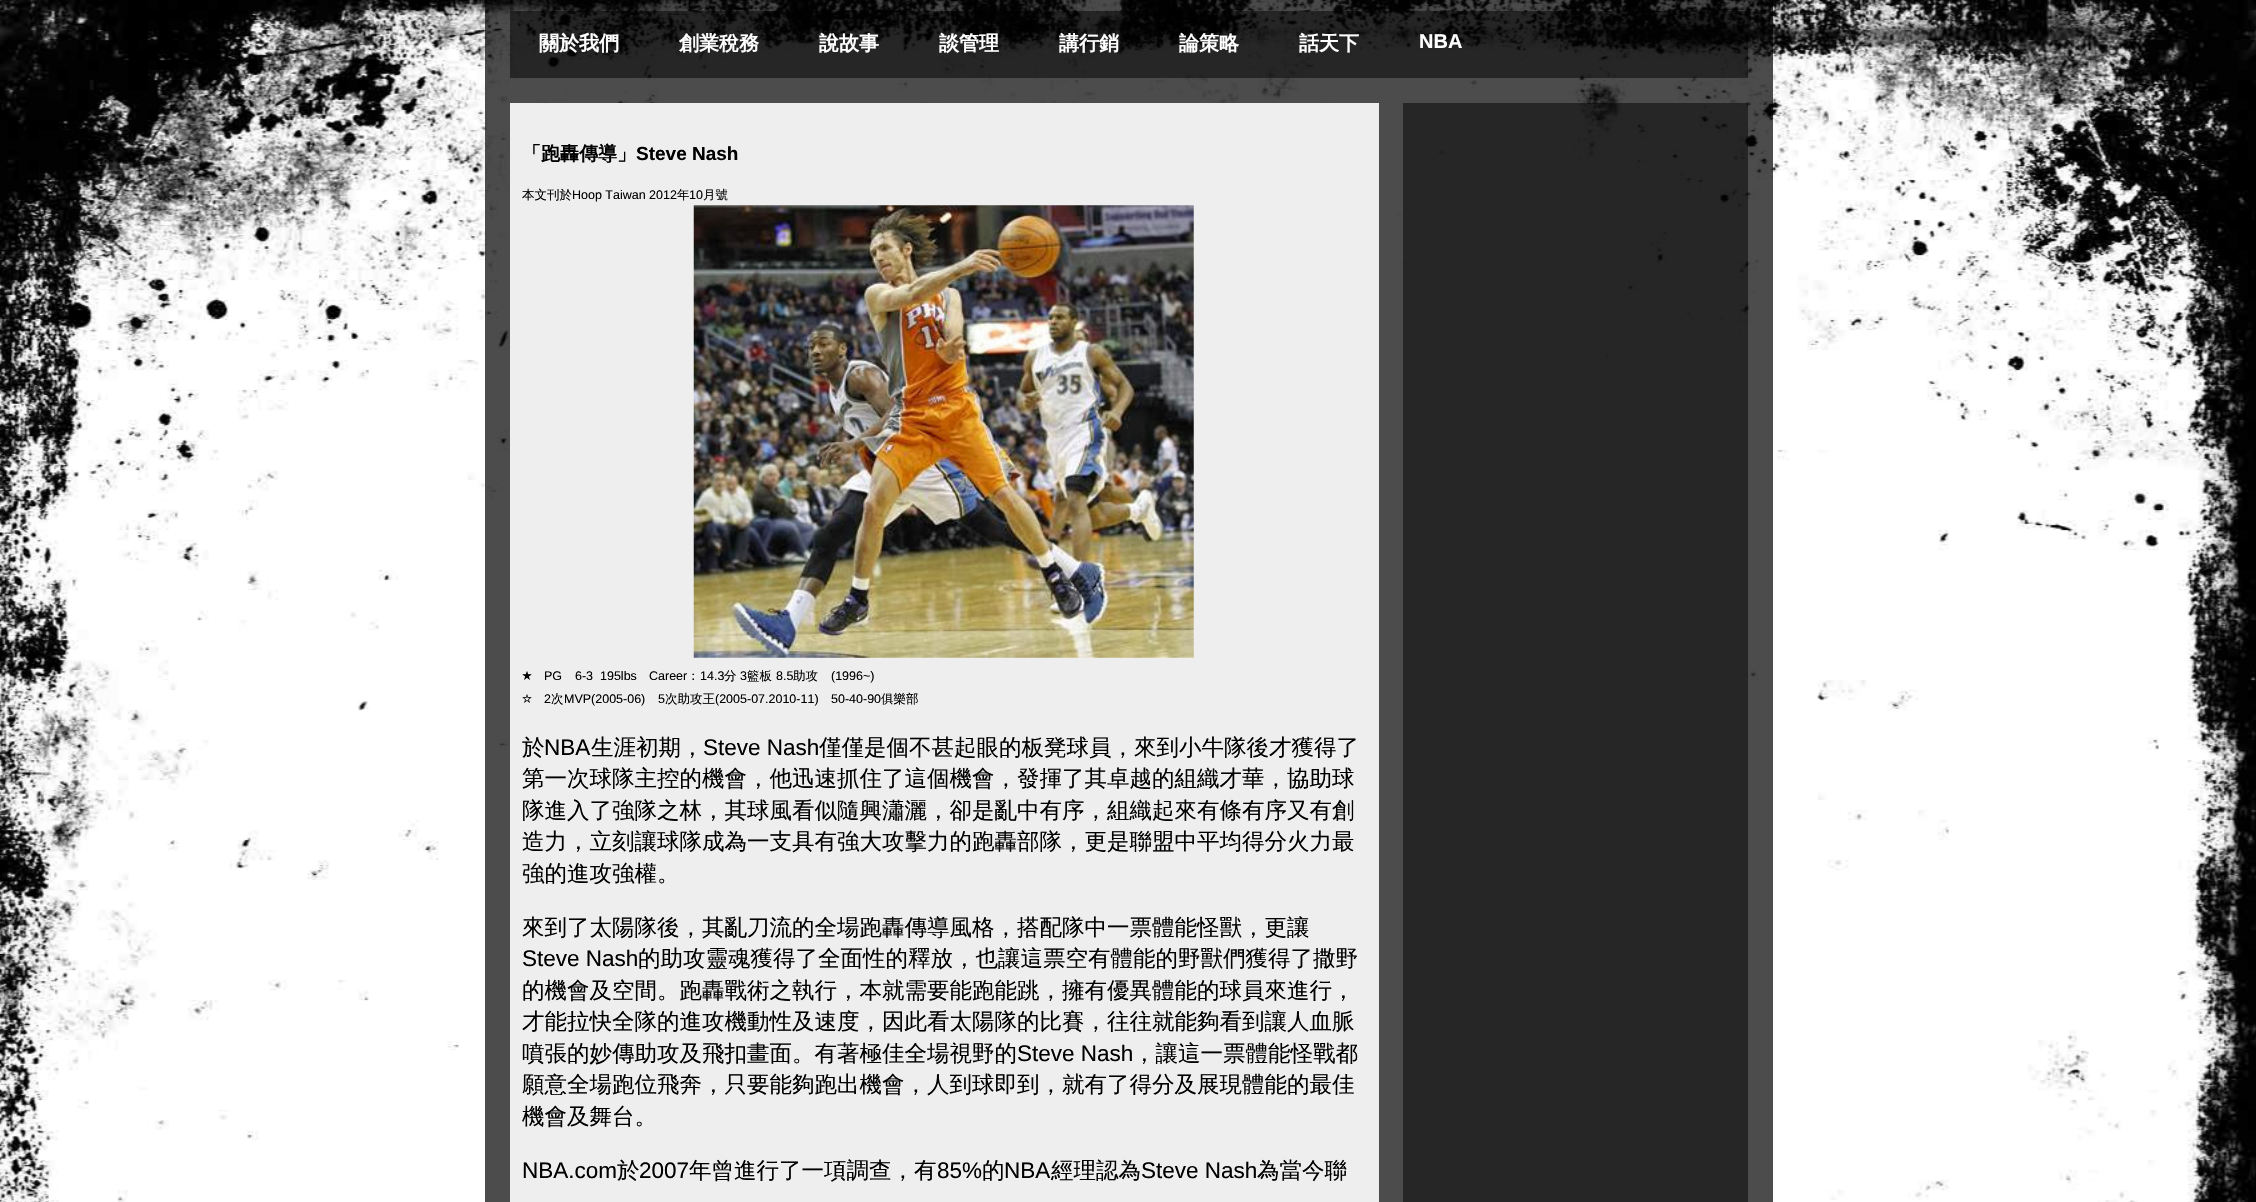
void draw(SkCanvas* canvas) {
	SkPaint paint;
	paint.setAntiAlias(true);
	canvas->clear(0xffffffff);
	canvas->drawImageRect(SkImages::DeferredFromEncodedData(SkData::MakeFromFileName("img1.png")), SkRect::MakeXYWH(0, 0, 2256, 1202), SkSamplingOptions());
	paint.setColor(0xb3000000);
	canvas->drawRect(SkRect::MakeXYWH(485, 0, 1288, 1202), paint);
	paint.setColor(0x80000000);
	canvas->drawRect(SkRect::MakeXYWH(510, 11, 1238, 67), paint);
	SkFont f1(fontMgr->matchFamilyStyle("WenQuanYi Zen Hei", SkFontStyle::Bold()), 20);
	f1.setSubpixel(true);
	paint.setColor(0xffffffff);
	canvas->drawString("關於我們", 539, 50, f1, paint);
	canvas->drawString("創業稅務", 679, 50, f1, paint);
	canvas->drawString("說故事", 819, 50, f1, paint);
	canvas->drawString("談管理", 939, 50, f1, paint);
	canvas->drawString("講行銷", 1059, 50, f1, paint);
	canvas->drawString("論策略", 1179, 50, f1, paint);
	canvas->drawString("話天下", 1299, 50, f1, paint);
	SkFont f2(fontMgr->matchFamilyStyle("Liberation Sans", SkFontStyle::Bold()), 20);
	f2.setSubpixel(true);
	canvas->drawString("NBA", 1419, 48, f2, paint);
	paint.setColor(0xffeeeeee);
	canvas->drawRect(SkRect::MakeXYWH(510, 103, 869, 1099), paint);
	SkFont f3(fontMgr->matchFamilyStyle("WenQuanYi Zen Hei", SkFontStyle::Bold()), 19);
	f3.setSubpixel(true);
	paint.setColor(0xff000000);
	canvas->drawString("「跑轟傳導」", 522, 160, f3, paint);
	SkFont f4(fontMgr->matchFamilyStyle("Liberation Sans", SkFontStyle::Bold()), 19);
	f4.setSubpixel(true);
	canvas->drawString("Steve Nash", 636, 160, f4, paint);
	SkFont f5(fontMgr->matchFamilyStyle("WenQuanYi Zen Hei", SkFontStyle(500, SkFontStyle::kNormal_Width, SkFontStyle::kUpright_Slant)), 12.5);
	f5.setSubpixel(true);
	canvas->drawString("本文刊於", 522, 199, f5, paint);
	SkFont f6(fontMgr->matchFamilyStyle("Liberation Sans", SkFontStyle::Normal()), 12.5);
	f6.setSubpixel(true);
	canvas->drawString("Hoop Taiwan 2012", 572, 199, f6, paint);
	canvas->drawString("年", 677, 199, f5, paint);
	canvas->drawString("10", 689, 199, f6, paint);
	canvas->drawString("月號", 703, 199, f5, paint);
	canvas->drawImageRect(SkImages::DeferredFromEncodedData(SkData::MakeFromFileName("img2.png")), SkRect::MakeXYWH(693, 205, 501, 453), SkSamplingOptions());
	SkFont f7(fontMgr->matchFamilyStyle("FreeSans", SkFontStyle::Normal()), 12.5);
	f7.setSubpixel(true);
	canvas->drawString("★", 522, 680, f7, paint);
	canvas->drawString("PG", 544, 680, f6, paint);
	canvas->drawString("6-3  195lbs", 575, 680, f6, paint);
	canvas->drawString("Career", 649, 680, f6, paint);
	canvas->drawString("：", 687, 680, f5, paint);
	canvas->drawString("14.3", 700, 680, f6, paint);
	canvas->drawString("分", 724, 680, f5, paint);
	canvas->drawString("3", 740, 680, f6, paint);
	canvas->drawString("籃板", 747, 680, f5, paint);
	canvas->drawString("8.5", 776, 680, f6, paint);
	canvas->drawString("助攻", 793, 680, f5, paint);
	canvas->drawString("(1996~)", 831, 680, f6, paint);
	canvas->drawString("☆", 522, 703, f7, paint);
	canvas->drawString("2", 544, 703, f6, paint);
	canvas->drawString("次", 551, 703, f5, paint);
	canvas->drawString("MVP(2005-06)", 564, 703, f6, paint);
	canvas->drawString("5", 658, 703, f6, paint);
	canvas->drawString("次助攻王", 665, 703, f5, paint);
	canvas->drawString("(2005-07.2010-11)", 715, 703, f6, paint);
	canvas->drawString("50-40-90", 831, 703, f6, paint);
	canvas->drawString("俱樂部", 881, 703, f5, paint);
	SkFont f8(fontMgr->matchFamilyStyle("WenQuanYi Zen Hei", SkFontStyle(500, SkFontStyle::kNormal_Width, SkFontStyle::kUpright_Slant)), 22.5);
	f8.setSubpixel(true);
	canvas->drawString("於", 522, 755, f8, paint);
	SkFont f9(fontMgr->matchFamilyStyle("Liberation Sans", SkFontStyle::Normal()), 22.5);
	f9.setSubpixel(true);
	canvas->drawString("NBA", 544, 755, f9, paint);
	canvas->drawString("生涯初期，", 591, 755, f8, paint);
	canvas->drawString("Steve Nash", 703, 755, f9, paint);
	canvas->drawString("僅僅是個不甚起眼的板凳球員，來到小牛隊後才獲得了", 819, 755, f8, paint);
	canvas->drawString("第一次球隊主控的機會，他迅速抓住了這個機會，發揮了其卓越的組織才華，協助球", 522, 786, f8, paint);
	canvas->drawString("隊進入了強隊之林，其球風看似隨興瀟灑，卻是亂中有序，組織起來有條有序又有創", 522, 818, f8, paint);
	canvas->drawString("造力，立刻讓球隊成為一支具有強大攻擊力的跑轟部隊，更是聯盟中平均得分火力最", 522, 849, f8, paint);
	canvas->drawString("強的進攻強權。", 522, 881, f8, paint);
	canvas->drawString("來到了太陽隊後，其亂刀流的全場跑轟傳導風格，搭配隊中一票體能怪獸，更讓", 522, 935, f8, paint);
	canvas->drawString("Steve Nash", 522, 966, f9, paint);
	canvas->drawString("的助攻靈魂獲得了全面性的釋放，也讓這票空有體能的野獸們獲得了撒野", 638, 966, f8, paint);
	canvas->drawString("的機會及空間。跑轟戰術之執行，本就需要能跑能跳，擁有優異體能的球員來進行，", 522, 998, f8, paint);
	canvas->drawString("才能拉快全隊的進攻機動性及速度，因此看太陽隊的比賽，往往就能夠看到讓人血脈", 522, 1029, f8, paint);
	canvas->drawString("噴張的妙傳助攻及飛扣畫面。有著極佳全場視野的", 522, 1061, f8, paint);
	canvas->drawString("Steve Nash", 1017, 1061, f9, paint);
	canvas->drawString("，讓這一票體能怪戰都", 1133, 1061, f8, paint);
	canvas->drawString("願意全場跑位飛奔，只要能夠跑出機會，人到球即到，就有了得分及展現體能的最佳", 522, 1092, f8, paint);
	canvas->drawString("機會及舞台。", 522, 1124, f8, paint);
	canvas->drawString("NBA.com", 522, 1178, f9, paint);
	canvas->drawString("於", 617, 1178, f8, paint);
	canvas->drawString("2007", 639, 1178, f9, paint);
	canvas->drawString("年曾進行了一項調查，有", 689, 1178, f8, paint);
	canvas->drawString("85%", 937, 1178, f9, paint);
	canvas->drawString("的", 982, 1178, f8, paint);
	canvas->drawString("NBA", 1004, 1178, f9, paint);
	canvas->drawString("經理認為", 1051, 1178, f8, paint);
	canvas->drawString("Steve Nash", 1141, 1178, f9, paint);
	canvas->drawString("為當今聯", 1257, 1178, f8, paint);
	paint.setColor(0x80000000);
	canvas->drawRect(SkRect::MakeXYWH(1403, 103, 345, 1099), paint);
}
